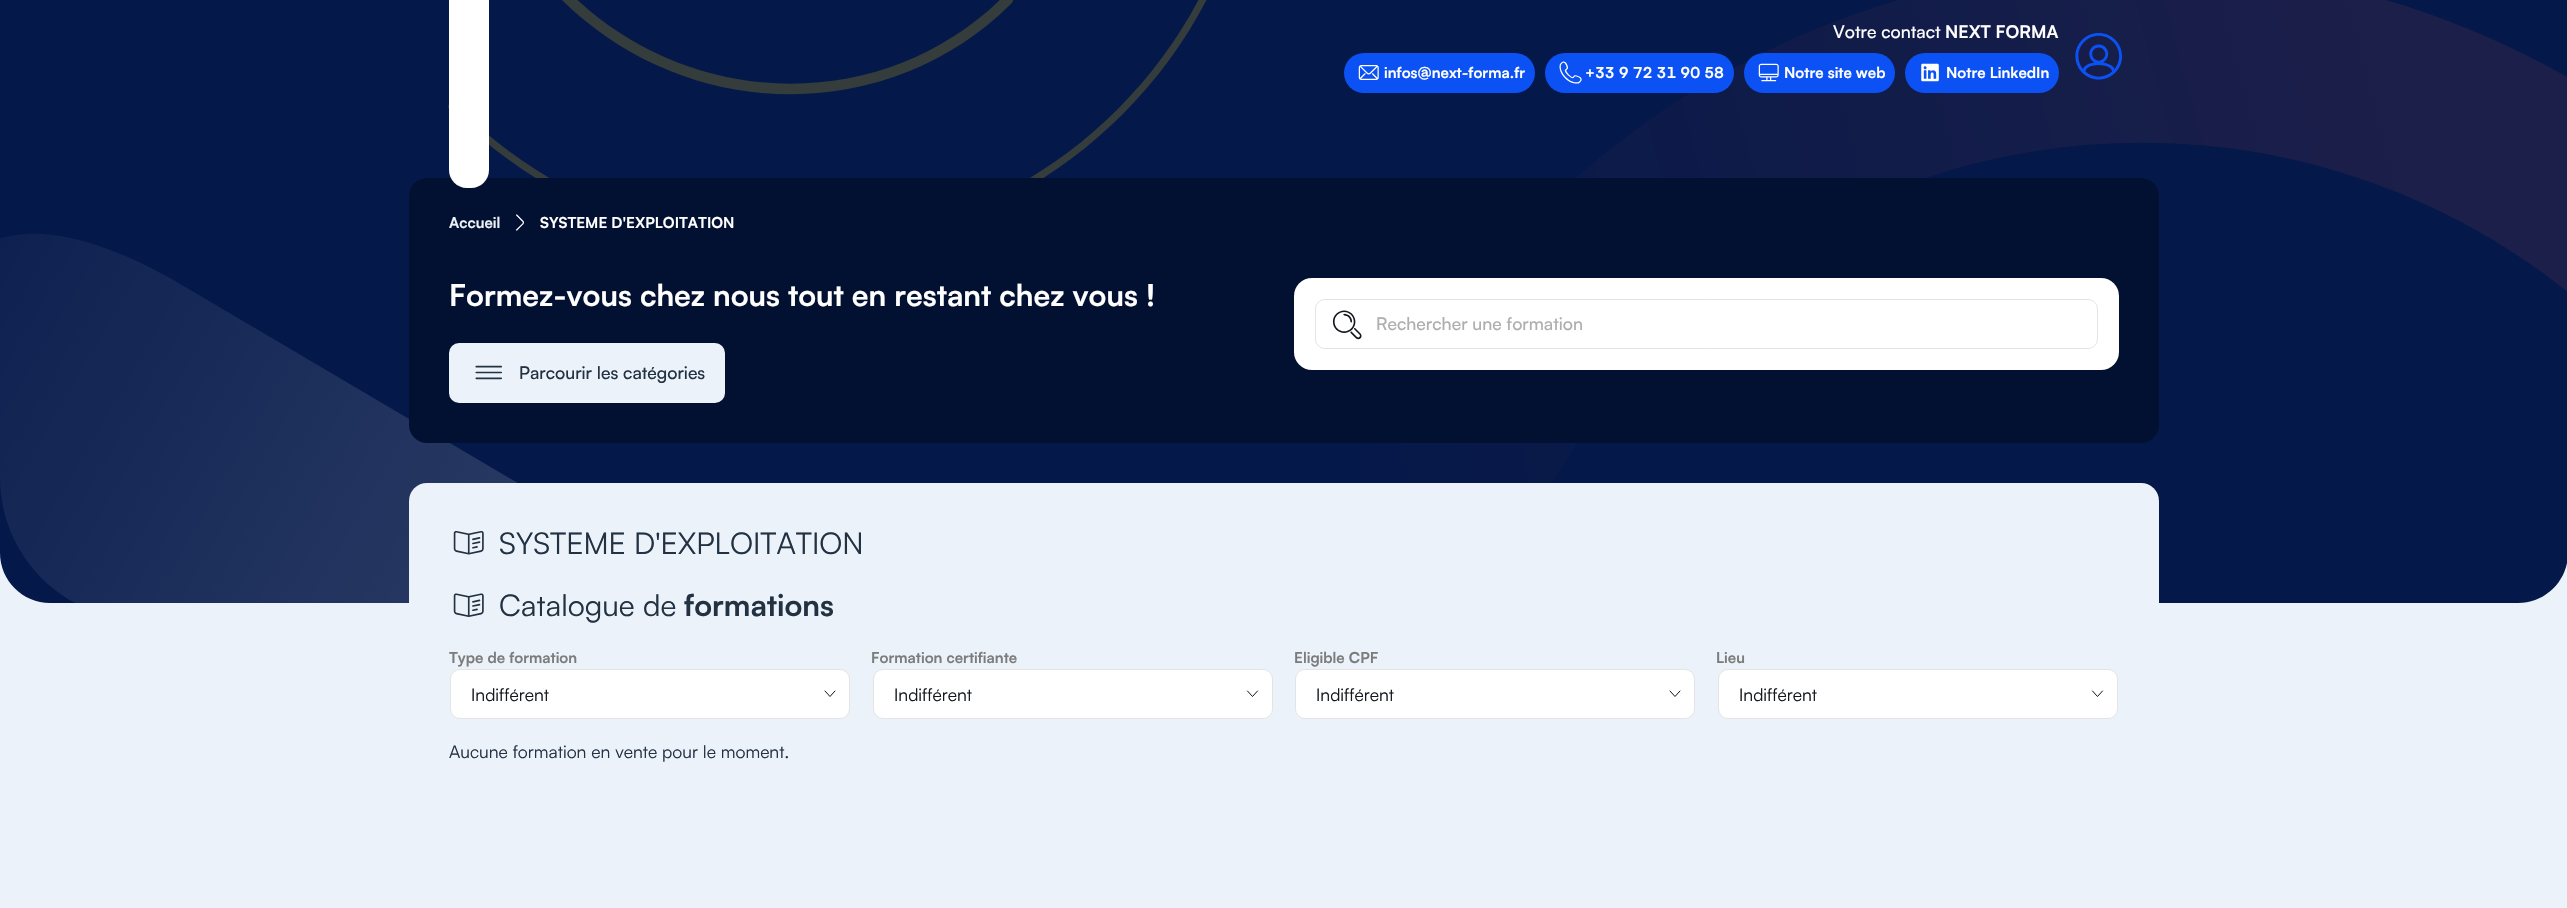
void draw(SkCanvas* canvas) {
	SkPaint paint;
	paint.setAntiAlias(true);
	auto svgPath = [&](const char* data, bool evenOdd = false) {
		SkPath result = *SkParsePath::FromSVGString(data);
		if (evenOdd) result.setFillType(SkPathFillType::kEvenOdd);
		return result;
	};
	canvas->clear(0xffecf2f9);
	paint.setColor(0xff041849);
	canvas->drawPath(svgPath("M0 0H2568V553C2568 580.5 2545.5 603 2518 603H50C22.5 603 0 580.5 0 553Z"), paint);
	canvas->drawImageRect(SkImages::DeferredFromEncodedData(SkData::MakeFromFileName("img1.png")), SkRect::MakeXYWH(0, 0, 2567, 603), SkSamplingOptions());
	paint.setColor(0xff021031);
	canvas->drawRoundRect(SkRect::MakeXYWH(409, 178, 1750, 265), 18, 18, paint);
	paint.setColor(0xffffffff);
	canvas->drawPath(svgPath("M449 0H489V170C489 180 481 188 471 188H467C457 188 449 180 449 170Z"), paint);
	SkFont f1(fontMgr->matchFamilyStyle("Satoshi", SkFontStyle(500, SkFontStyle::kNormal_Width, SkFontStyle::kUpright_Slant)), 17.5);
	f1.setSubpixel(true);
	canvas->drawString("Votre contact", 1833, 38, f1, paint);
	SkFont f2(fontMgr->matchFamilyStyle("Satoshi", SkFontStyle::Bold()), 17.5);
	f2.setSubpixel(true);
	canvas->drawString("NEXT FORMA", 1945, 38, f2, paint);
	paint.setColor(0xff0c51f3);
	canvas->drawRoundRect(SkRect::MakeXYWH(1344, 53, 191, 40), 20, 20, paint);
	canvas->drawImageRect(SkImages::DeferredFromEncodedData(SkData::MakeFromFileName("img2.png")), SkRect::MakeXYWH(1358, 65, 21, 15), SkSamplingOptions());
	SkFont f3(fontMgr->matchFamilyStyle("Satoshi", SkFontStyle::Bold()), 15);
	f3.setSubpixel(true);
	paint.setColor(0xffffffff);
	canvas->drawString("infos@next-forma.fr", 1384, 78, f3, paint);
	paint.setColor(0xff0c51f3);
	canvas->drawRoundRect(SkRect::MakeXYWH(1545, 53, 189, 40), 20, 20, paint);
	canvas->drawImageRect(SkImages::DeferredFromEncodedData(SkData::MakeFromFileName("img3.png")), SkRect::MakeXYWH(1559, 61, 23, 23), SkSamplingOptions());
	SkFont f4(fontMgr->matchFamilyStyle("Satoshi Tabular", SkFontStyle::Bold()), 15);
	f4.setSubpixel(true);
	paint.setColor(0xffffffff);
	canvas->drawString("+33 9 72 31 90 58", 1585, 78, f4, paint);
	paint.setColor(0xff0c51f3);
	canvas->drawRoundRect(SkRect::MakeXYWH(1744, 53, 151, 40), 20, 20, paint);
	canvas->drawImageRect(SkImages::DeferredFromEncodedData(SkData::MakeFromFileName("img4.png")), SkRect::MakeXYWH(1758, 63, 21, 19), SkSamplingOptions());
	paint.setColor(0xffffffff);
	canvas->drawString("Notre site web", 1784, 78, f3, paint);
	paint.setColor(0xff0c51f3);
	canvas->drawRoundRect(SkRect::MakeXYWH(1905, 53, 154, 40), 20, 20, paint);
	canvas->drawImageRect(SkImages::DeferredFromEncodedData(SkData::MakeFromFileName("img5.png")), SkRect::MakeXYWH(1921, 63, 18, 19), SkSamplingOptions());
	paint.setColor(0xffffffff);
	canvas->drawString("Notre LinkedIn", 1946, 78, f3, paint);
	canvas->drawImageRect(SkImages::DeferredFromEncodedData(SkData::MakeFromFileName("img6.png")), SkRect::MakeXYWH(2075, 33, 48, 47), SkSamplingOptions());
	paint.setColor(0xffecf2f9);
	canvas->drawString("Accueil", 449, 228, f3, paint);
	canvas->drawImageRect(SkImages::DeferredFromEncodedData(SkData::MakeFromFileName("img7.png")), SkRect::MakeXYWH(516, 214, 8, 17), SkSamplingOptions());
	paint.setColor(0xffffffff);
	canvas->drawString("SYSTEME D'EXPLOITATION", 540, 228, f3, paint);
	SkFont f5(fontMgr->matchFamilyStyle("Satoshi", SkFontStyle::Bold()), 30);
	f5.setSubpixel(true);
	canvas->drawString("Formez-vous chez nous tout en restant chez vous !", 449, 306, f5, paint);
	paint.setColor(0xffecf2f9);
	canvas->drawRoundRect(SkRect::MakeXYWH(449, 343, 276, 60), 10, 10, paint);
	canvas->drawImageRect(SkImages::DeferredFromEncodedData(SkData::MakeFromFileName("img8.png")), SkRect::MakeXYWH(475, 365, 27, 15), SkSamplingOptions());
	paint.setColor(0xff233243);
	canvas->drawString("Parcourir les catégories", 519, 379, f1, paint);
	paint.setColor(0xffffffff);
	canvas->drawRoundRect(SkRect::MakeXYWH(1294, 278, 825, 92), 18, 18, paint);
	paint.setStroke(true);
	paint.setStrokeWidth(1);
	paint.setColor(0xffe4e4e4);
	canvas->drawRoundRect(SkRect::MakeXYWH(1315.5, 299.5, 782, 49), 9.5, 9.5, paint);
	canvas->drawImageRect(SkImages::DeferredFromEncodedData(SkData::MakeFromFileName("img9.png")), SkRect::MakeXYWH(1332, 310, 30, 30), SkSamplingOptions());
	paint.setStroke(false);
	paint.setColor(0xffafafaf);
	canvas->drawString("Rechercher une formation", 1376, 330, f1, paint);
	paint.setColor(0xffecf2f9);
	canvas->drawRoundRect(SkRect::MakeXYWH(409, 483, 1750, 320), 18, 18, paint);
	canvas->drawImageRect(SkImages::DeferredFromEncodedData(SkData::MakeFromFileName("img10.png")), SkRect::MakeXYWH(453, 531, 31, 24), SkSamplingOptions());
	SkFont f6(fontMgr->matchFamilyStyle("Satoshi", SkFontStyle::Normal()), 30);
	f6.setSubpixel(true);
	paint.setColor(0xff233243);
	canvas->drawString("SYSTEME D'EXPLOITATION", 499, 554, f6, paint);
	canvas->drawImageRect(SkImages::DeferredFromEncodedData(SkData::MakeFromFileName("img11.png")), SkRect::MakeXYWH(453, 593, 31, 24), SkSamplingOptions());
	canvas->drawString("Catalogue de", 499, 616, f6, paint);
	canvas->drawString("formations", 684, 616, f5, paint);
	paint.setColor(0xff7c7c7c);
	canvas->drawString("Type de formation", 449, 663, f3, paint);
	paint.setColor(0xffffffff);
	canvas->drawRoundRect(SkRect::MakeXYWH(450.5, 669.5, 399, 49), 9.5, 9.5, paint);
	paint.setStroke(true);
	paint.setColor(0xffe4e4e4);
	canvas->drawRoundRect(SkRect::MakeXYWH(450.5, 669.5, 399, 49), 9.5, 9.5, paint);
	paint.setStrokeCap(SkPaint::kRound_Cap);
	paint.setColor(0xff14101f);
	canvas->drawPath(svgPath("M825 691L830 696.5L835 691"), paint);
	SkFont f7(fontMgr->matchFamilyStyle("Satoshi", SkFontStyle::Normal()), 17.5);
	f7.setSubpixel(true);
	paint.setStroke(false);
	paint.setColor(0xff15181e);
	canvas->drawString("Indifférent", 471, 701, f7, paint);
	paint.setColor(0xff7c7c7c);
	canvas->drawString("Formation certifiante", 871, 663, f3, paint);
	paint.setColor(0xffffffff);
	canvas->drawRoundRect(SkRect::MakeXYWH(873.5, 669.5, 399, 49), 9.5, 9.5, paint);
	paint.setStroke(true);
	paint.setStrokeCap(SkPaint::kButt_Cap);
	paint.setColor(0xffe4e4e4);
	canvas->drawRoundRect(SkRect::MakeXYWH(873.5, 669.5, 399, 49), 9.5, 9.5, paint);
	paint.setStrokeCap(SkPaint::kRound_Cap);
	paint.setColor(0xff14101f);
	canvas->drawPath(svgPath("M1247.5 691L1252.5 696.5L1257.5 691"), paint);
	paint.setStroke(false);
	paint.setColor(0xff15181e);
	canvas->drawString("Indifférent", 894, 701, f7, paint);
	paint.setColor(0xff7c7c7c);
	canvas->drawString("Eligible CPF", 1294, 663, f3, paint);
	paint.setColor(0xffffffff);
	canvas->drawRoundRect(SkRect::MakeXYWH(1295.5, 669.5, 399, 49), 9.5, 9.5, paint);
	paint.setStroke(true);
	paint.setStrokeCap(SkPaint::kButt_Cap);
	paint.setColor(0xffe4e4e4);
	canvas->drawRoundRect(SkRect::MakeXYWH(1295.5, 669.5, 399, 49), 9.5, 9.5, paint);
	paint.setStrokeCap(SkPaint::kRound_Cap);
	paint.setColor(0xff14101f);
	canvas->drawPath(svgPath("M1670 691L1675 696.5L1680 691"), paint);
	paint.setStroke(false);
	paint.setColor(0xff15181e);
	canvas->drawString("Indifférent", 1316, 701, f7, paint);
	paint.setColor(0xff7c7c7c);
	canvas->drawString("Lieu", 1716, 663, f3, paint);
	paint.setColor(0xffffffff);
	canvas->drawRoundRect(SkRect::MakeXYWH(1718.5, 669.5, 399, 49), 9.5, 9.5, paint);
	paint.setStroke(true);
	paint.setStrokeCap(SkPaint::kButt_Cap);
	paint.setColor(0xffe4e4e4);
	canvas->drawRoundRect(SkRect::MakeXYWH(1718.5, 669.5, 399, 49), 9.5, 9.5, paint);
	paint.setStrokeCap(SkPaint::kRound_Cap);
	paint.setColor(0xff14101f);
	canvas->drawPath(svgPath("M2092.5 691L2097.5 696.5L2102.5 691"), paint);
	paint.setStroke(false);
	paint.setColor(0xff15181e);
	canvas->drawString("Indifférent", 1739, 701, f7, paint);
	paint.setColor(0xff233243);
	canvas->drawString("Aucune formation en vente pour le moment.", 449, 758, f7, paint);
}
